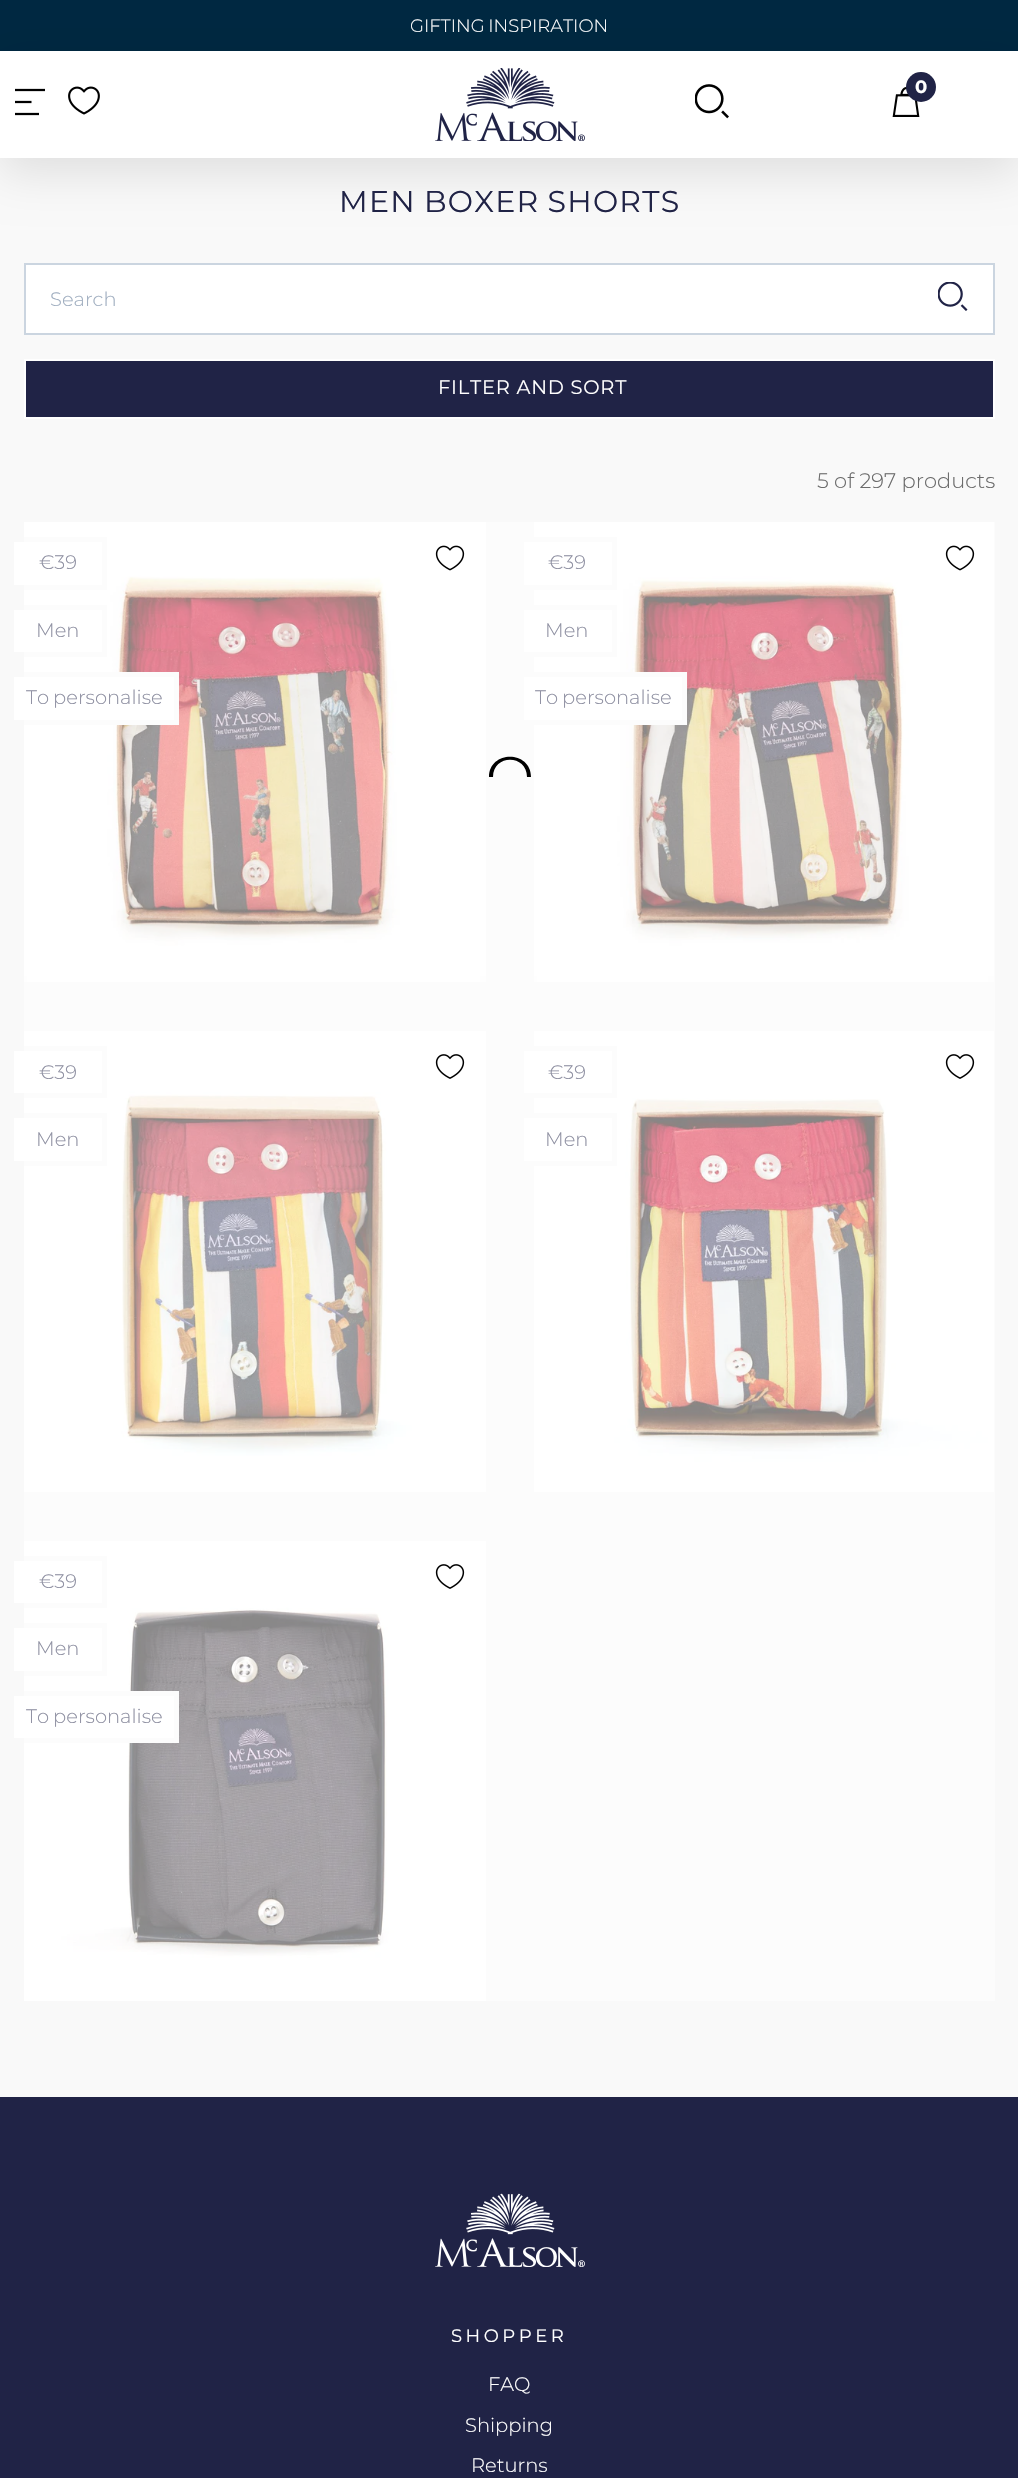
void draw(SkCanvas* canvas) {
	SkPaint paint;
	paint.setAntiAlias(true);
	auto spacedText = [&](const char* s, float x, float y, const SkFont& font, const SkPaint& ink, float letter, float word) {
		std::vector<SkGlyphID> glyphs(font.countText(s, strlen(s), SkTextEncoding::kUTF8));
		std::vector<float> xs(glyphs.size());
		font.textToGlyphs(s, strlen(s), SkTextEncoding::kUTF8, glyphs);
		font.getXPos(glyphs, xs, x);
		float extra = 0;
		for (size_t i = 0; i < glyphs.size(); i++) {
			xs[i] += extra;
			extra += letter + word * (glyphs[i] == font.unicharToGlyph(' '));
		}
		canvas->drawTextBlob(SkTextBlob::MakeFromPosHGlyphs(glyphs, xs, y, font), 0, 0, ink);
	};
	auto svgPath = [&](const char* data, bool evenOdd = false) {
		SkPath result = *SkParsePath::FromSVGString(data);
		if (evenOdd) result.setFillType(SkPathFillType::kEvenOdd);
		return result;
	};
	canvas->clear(0xfff9f9f9);
	paint.setColor(0xff002841);
	canvas->drawRect(SkRect::MakeXYWH(0, 0, 1018, 51), paint);
	paint.setColor(0x1a000000);
	paint.setMaskFilter(SkMaskFilter::MakeBlur(kNormal_SkBlurStyle, 22.5));
	canvas->drawRect(SkRect::MakeXYWH(0, 66, 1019, 107), paint);
	paint.setMaskFilter(nullptr);
	SkFont f1(fontMgr->matchFamilyStyle("Montserrat", SkFontStyle(300, SkFontStyle::kNormal_Width, SkFontStyle::kUpright_Slant)), 18);
	f1.setSubpixel(true);
	paint.setColor(0xffffffff);
	spacedText("GIFTING INSPIRATION", 410, 32, f1, paint, 0, -1);
	canvas->drawRect(SkRect::MakeXYWH(0, 51, 1018, 107), paint);
	canvas->drawImageRect(SkImages::DeferredFromEncodedData(SkData::MakeFromFileName("img1.png")), SkRect::MakeXYWH(435, 68, 150, 73), SkSamplingOptions());
	canvas->drawImageRect(SkImages::DeferredFromEncodedData(SkData::MakeFromFileName("img2.png")), SkRect::MakeXYWH(15, 88, 30, 28), SkSamplingOptions());
	canvas->drawImageRect(SkImages::DeferredFromEncodedData(SkData::MakeFromFileName("img3.png")), SkRect::MakeXYWH(68, 86, 32, 29), SkSamplingOptions());
	canvas->drawImageRect(SkImages::DeferredFromEncodedData(SkData::MakeFromFileName("img4.png")), SkRect::MakeXYWH(695, 84, 34, 35), SkSamplingOptions());
	canvas->drawImageRect(SkImages::DeferredFromEncodedData(SkData::MakeFromFileName("img5.png")), SkRect::MakeXYWH(892, 87, 28, 30), SkSamplingOptions());
	paint.setColor(0xff202346);
	canvas->drawCircle(921, 87, 15, paint);
	SkFont f2(fontMgr->matchFamilyStyle("Montserrat", SkFontStyle::Bold()), 18);
	f2.setSubpixel(true);
	paint.setColor(0xffffffff);
	canvas->drawString("0", 915, 93, f2, paint);
	SkFont f3(fontMgr->matchFamilyStyle("Montserrat", SkFontStyle(100, SkFontStyle::kNormal_Width, SkFontStyle::kUpright_Slant)), 30);
	f3.setSubpixel(true);
	paint.setColor(0xff202346);
	spacedText("MEN BOXER SHORTS", 339, 212, f3, paint, 1.25, -1);
	paint.setColor(0xffffffff);
	canvas->drawRect(SkRect::MakeXYWH(25, 264, 969, 70), paint);
	paint.setStroke(true);
	paint.setStrokeWidth(2);
	paint.setColor(0xffcbd5e0);
	canvas->drawRect(SkRect::MakeXYWH(25, 264, 969, 70), paint);
	SkFont f4(fontMgr->matchFamilyStyle("Montserrat", SkFontStyle(300, SkFontStyle::kNormal_Width, SkFontStyle::kUpright_Slant)), 19.5);
	f4.setSubpixel(true);
	paint.setStroke(false);
	paint.setColor(0xffa0aec0);
	canvas->drawString("Search", 50, 306, f4, paint);
	canvas->drawImageRect(SkImages::DeferredFromEncodedData(SkData::MakeFromFileName("img6.png")), SkRect::MakeXYWH(938, 282, 30, 29), SkSamplingOptions());
	paint.setColor(0xff202346);
	canvas->drawRect(SkRect::MakeXYWH(25, 360, 969, 58), paint);
	paint.setStroke(true);
	paint.setColor(0xffffffff);
	canvas->drawRect(SkRect::MakeXYWH(25, 360, 969, 58), paint);
	SkFont f5(fontMgr->matchFamilyStyle("Montserrat", SkFontStyle(100, SkFontStyle::kNormal_Width, SkFontStyle::kUpright_Slant)), 19.5);
	f5.setSubpixel(true);
	paint.setStroke(false);
	spacedText("FILTER AND SORT", 438, 394, f5, paint, 0.75, 0);
	SkFont f6(fontMgr->matchFamilyStyle("Montserrat", SkFontStyle(300, SkFontStyle::kNormal_Width, SkFontStyle::kUpright_Slant)), 21);
	f6.setSubpixel(true);
	paint.setColor(0xff6b6b6b);
	canvas->drawString("5 of 297 products", 817, 488, f6, paint);
	canvas->drawImageRect(SkImages::DeferredFromEncodedData(SkData::MakeFromFileName("img7.png")), SkRect::MakeXYWH(24, 522, 462, 460), SkSamplingOptions());
	paint.setColor(0xffffffff);
	canvas->drawRect(SkRect::MakeXYWH(14, 542, 10, 43), paint);
	paint.setStroke(true);
	paint.setStrokeWidth(5);
	paint.setColor(0xfff9f9f9);
	canvas->drawRect(SkRect::MakeXYWH(11.5, 539.5, 93, 48), paint);
	paint.setStroke(false);
	paint.setColor(0xff202346);
	canvas->drawString("€39", 39, 569, f4, paint);
	paint.setColor(0xffffffff);
	canvas->drawRect(SkRect::MakeXYWH(14, 610, 10, 42), paint);
	paint.setStroke(true);
	paint.setColor(0xfff9f9f9);
	canvas->drawRect(SkRect::MakeXYWH(11.5, 607.5, 93, 47), paint);
	paint.setStroke(false);
	paint.setColor(0xff202346);
	canvas->drawString("Men", 36, 637, f4, paint);
	paint.setColor(0xffffffff);
	canvas->drawRect(SkRect::MakeXYWH(11.5, 674.5, 165, 48), paint);
	paint.setStroke(true);
	paint.setColor(0xfff9f9f9);
	canvas->drawRect(SkRect::MakeXYWH(11.5, 674.5, 165, 48), paint);
	paint.setStroke(false);
	paint.setColor(0xff202346);
	spacedText("To personalise", 26, 704, f4, paint, 0, -1);
	canvas->drawImageRect(SkImages::DeferredFromEncodedData(SkData::MakeFromFileName("img9.png")), SkRect::MakeXYWH(534, 522, 460, 460), SkSamplingOptions());
	paint.setColor(0xffffffff);
	canvas->drawRect(SkRect::MakeXYWH(524, 542, 10, 43), paint);
	paint.setStroke(true);
	paint.setColor(0xfff9f9f9);
	canvas->drawRect(SkRect::MakeXYWH(521.5, 539.5, 93, 48), paint);
	paint.setStroke(false);
	paint.setColor(0xff202346);
	canvas->drawString("€39", 548, 569, f4, paint);
	paint.setColor(0xffffffff);
	canvas->drawRect(SkRect::MakeXYWH(524, 610, 10, 42), paint);
	paint.setStroke(true);
	paint.setColor(0xfff9f9f9);
	canvas->drawRect(SkRect::MakeXYWH(521.5, 607.5, 93, 47), paint);
	paint.setStroke(false);
	paint.setColor(0xff202346);
	canvas->drawString("Men", 545, 637, f4, paint);
	paint.setColor(0xffffffff);
	canvas->drawRect(SkRect::MakeXYWH(521.5, 674.5, 163, 48), paint);
	paint.setStroke(true);
	paint.setColor(0xfff9f9f9);
	canvas->drawRect(SkRect::MakeXYWH(521.5, 674.5, 163, 48), paint);
	paint.setStroke(false);
	paint.setColor(0xff202346);
	spacedText("To personalise", 535, 704, f4, paint, 0, -1);
	canvas->drawImageRect(SkImages::DeferredFromEncodedData(SkData::MakeFromFileName("img10.png")), SkRect::MakeXYWH(24, 1031, 462, 461), SkSamplingOptions());
	paint.setColor(0xffffffff);
	canvas->drawRect(SkRect::MakeXYWH(14, 1051, 10, 42), paint);
	paint.setStroke(true);
	paint.setColor(0xfff9f9f9);
	canvas->drawRect(SkRect::MakeXYWH(11.5, 1048.5, 93, 47), paint);
	paint.setStroke(false);
	paint.setColor(0xff202346);
	canvas->drawString("€39", 39, 1079, f4, paint);
	paint.setColor(0xffffffff);
	canvas->drawRect(SkRect::MakeXYWH(14, 1118, 10, 43), paint);
	paint.setStroke(true);
	paint.setColor(0xfff9f9f9);
	canvas->drawRect(SkRect::MakeXYWH(11.5, 1115.5, 93, 48), paint);
	paint.setStroke(false);
	paint.setColor(0xff202346);
	canvas->drawString("Men", 36, 1146, f4, paint);
	canvas->drawImageRect(SkImages::DeferredFromEncodedData(SkData::MakeFromFileName("img12.png")), SkRect::MakeXYWH(534, 1031, 460, 461), SkSamplingOptions());
	paint.setColor(0xffffffff);
	canvas->drawRect(SkRect::MakeXYWH(524, 1051, 10, 42), paint);
	paint.setStroke(true);
	paint.setColor(0xfff9f9f9);
	canvas->drawRect(SkRect::MakeXYWH(521.5, 1048.5, 93, 47), paint);
	paint.setStroke(false);
	paint.setColor(0xff202346);
	canvas->drawString("€39", 548, 1079, f4, paint);
	paint.setColor(0xffffffff);
	canvas->drawRect(SkRect::MakeXYWH(524, 1118, 10, 43), paint);
	paint.setStroke(true);
	paint.setColor(0xfff9f9f9);
	canvas->drawRect(SkRect::MakeXYWH(521.5, 1115.5, 93, 48), paint);
	paint.setStroke(false);
	paint.setColor(0xff202346);
	canvas->drawString("Men", 545, 1146, f4, paint);
	canvas->drawImageRect(SkImages::DeferredFromEncodedData(SkData::MakeFromFileName("img13.png")), SkRect::MakeXYWH(24, 1541, 462, 460), SkSamplingOptions());
	paint.setColor(0xffffffff);
	canvas->drawRect(SkRect::MakeXYWH(14, 1561, 10, 42), paint);
	paint.setStroke(true);
	paint.setColor(0xfff9f9f9);
	canvas->drawRect(SkRect::MakeXYWH(11.5, 1558.5, 93, 47), paint);
	paint.setStroke(false);
	paint.setColor(0xff202346);
	canvas->drawString("€39", 39, 1588, f4, paint);
	paint.setColor(0xffffffff);
	canvas->drawRect(SkRect::MakeXYWH(14, 1628, 10, 43), paint);
	paint.setStroke(true);
	paint.setColor(0xfff9f9f9);
	canvas->drawRect(SkRect::MakeXYWH(11.5, 1625.5, 93, 48), paint);
	paint.setStroke(false);
	paint.setColor(0xff202346);
	canvas->drawString("Men", 36, 1655, f4, paint);
	paint.setColor(0xffffffff);
	canvas->drawRect(SkRect::MakeXYWH(11.5, 1693.5, 165, 47), paint);
	paint.setStroke(true);
	paint.setColor(0xfff9f9f9);
	canvas->drawRect(SkRect::MakeXYWH(11.5, 1693.5, 165, 47), paint);
	paint.setStroke(false);
	paint.setColor(0xff202346);
	spacedText("To personalise", 26, 1723, f4, paint, 0, -1);
	paint.setColor(0x80ffffff);
	canvas->drawRect(SkRect::MakeXYWH(24, 522, 971, 1479), paint);
	canvas->drawImageRect(SkImages::DeferredFromEncodedData(SkData::MakeFromFileName("img8.png")), SkRect::MakeXYWH(435, 545, 30, 26), SkSamplingOptions());
	canvas->drawImageRect(SkImages::DeferredFromEncodedData(SkData::MakeFromFileName("img8.png")), SkRect::MakeXYWH(945, 545, 30, 26), SkSamplingOptions());
	canvas->drawImageRect(SkImages::DeferredFromEncodedData(SkData::MakeFromFileName("img11.png")), SkRect::MakeXYWH(435, 1054, 30, 25), SkSamplingOptions());
	canvas->drawImageRect(SkImages::DeferredFromEncodedData(SkData::MakeFromFileName("img11.png")), SkRect::MakeXYWH(945, 1054, 30, 25), SkSamplingOptions());
	canvas->drawImageRect(SkImages::DeferredFromEncodedData(SkData::MakeFromFileName("img11.png")), SkRect::MakeXYWH(435, 1564, 30, 25), SkSamplingOptions());
	paint.setColor(0xff000000);
	canvas->drawPath(svgPath("M531 777C531 750 489 750 489 777M493 777C493 754 527 754 527 777"), paint);
	paint.setColor(0xff202346);
	canvas->drawRect(SkRect::MakeXYWH(0, 2097, 1018, 381), paint);
	canvas->drawImageRect(SkImages::DeferredFromEncodedData(SkData::MakeFromFileName("img14.png")), SkRect::MakeXYWH(435, 2193, 150, 74), SkSamplingOptions());
	SkFont f7(fontMgr->matchFamilyStyle("Montserrat", SkFontStyle(100, SkFontStyle::kNormal_Width, SkFontStyle::kUpright_Slant)), 18);
	f7.setSubpixel(true);
	paint.setColor(0xffffffff);
	spacedText("SHOPPER", 451, 2342, f7, paint, 3.5, 0);
	canvas->drawString("FAQ", 488, 2391, f4, paint);
	canvas->drawString("Shipping", 465, 2432, f4, paint);
	canvas->drawString("Returns", 471, 2472, f4, paint);
}
